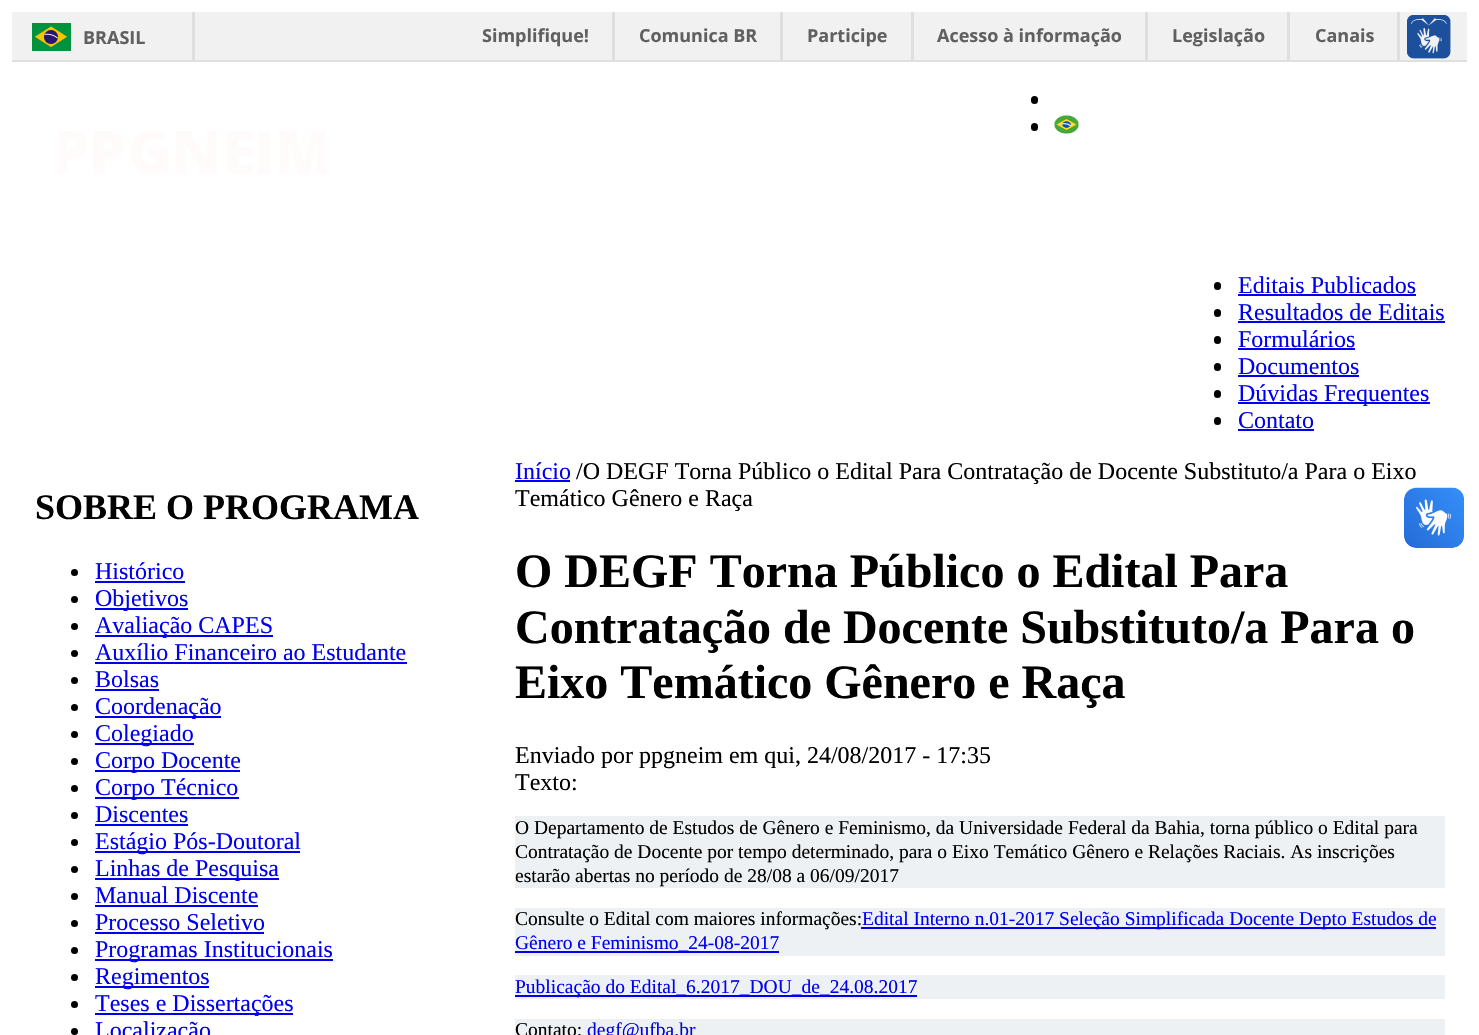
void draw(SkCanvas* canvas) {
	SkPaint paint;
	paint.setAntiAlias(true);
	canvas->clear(0xffffffff);
	paint.setColor(0xfff1f1f1);
	canvas->drawRect(SkRect::MakeXYWH(12, 12, 1455, 48), paint);
	paint.setColor(0xffdfdfdf);
	canvas->drawRect(SkRect::MakeXYWH(12, 60, 1455, 2), paint);
	canvas->drawRect(SkRect::MakeXYWH(192, 12, 3, 48), paint);
	canvas->drawImageRect(SkImages::DeferredFromEncodedData(SkData::MakeFromFileName("img1.png")), SkRect::MakeXYWH(32, 23, 39, 28), SkSamplingOptions());
	SkFont f1(fontMgr->matchFamilyStyle("Open Sans", SkFontStyle::Bold()), 18);
	f1.setSubpixel(true);
	paint.setColor(0xff606060);
	canvas->drawString("BRASIL", 83, 44, f1, paint);
	paint.setColor(0xffdfdfdf);
	canvas->drawRect(SkRect::MakeXYWH(612, 12, 3, 48), paint);
	paint.setColor(0xff606060);
	canvas->drawString("Simplifique!", 482, 42, f1, paint);
	paint.setColor(0xffdfdfdf);
	canvas->drawRect(SkRect::MakeXYWH(780, 12, 3, 48), paint);
	paint.setColor(0xff606060);
	canvas->drawString("Comunica BR", 639, 42, f1, paint);
	paint.setColor(0xffdfdfdf);
	canvas->drawRect(SkRect::MakeXYWH(911, 12, 3, 48), paint);
	paint.setColor(0xff606060);
	canvas->drawString("Participe", 807, 42, f1, paint);
	paint.setColor(0xffdfdfdf);
	canvas->drawRect(SkRect::MakeXYWH(1145, 12, 3, 48), paint);
	paint.setColor(0xff606060);
	canvas->drawString("Acesso à informação", 937, 42, f1, paint);
	paint.setColor(0xffdfdfdf);
	canvas->drawRect(SkRect::MakeXYWH(1287, 12, 3, 48), paint);
	paint.setColor(0xff606060);
	canvas->drawString("Legislação", 1172, 42, f1, paint);
	paint.setColor(0xffdfdfdf);
	canvas->drawRect(SkRect::MakeXYWH(1397, 12, 3, 48), paint);
	paint.setColor(0xff606060);
	canvas->drawString("Canais", 1315, 42, f1, paint);
	canvas->drawImageRect(SkImages::DeferredFromEncodedData(SkData::MakeFromFileName("img2.png")), SkRect::MakeXYWH(1407, 15, 44, 44), SkSamplingOptions());
	paint.setColor(0xff000000);
	canvas->drawRoundRect(SkRect::MakeXYWH(1031, 96, 7, 8), 3.5, 3.5, paint);
	canvas->drawRoundRect(SkRect::MakeXYWH(1031, 123, 7, 8), 3.5, 3.5, paint);
	canvas->drawImageRect(SkImages::DeferredFromEncodedData(SkData::MakeFromFileName("img3.png")), SkRect::MakeXYWH(1054, 115, 25, 19), SkSamplingOptions());
	canvas->drawImageRect(SkImages::DeferredFromEncodedData(SkData::MakeFromFileName("img4.png")), SkRect::MakeXYWH(58, 131, 268, 43), SkSamplingOptions());
	canvas->drawRoundRect(SkRect::MakeXYWH(1214, 282, 7, 8), 3.5, 3.5, paint);
	SkFont f2(fontMgr->matchFamilyStyle("Liberation Serif", SkFontStyle::Normal()), 24);
	f2.setSubpixel(true);
	paint.setColor(0xff0000ee);
	canvas->drawString("Editais Publicados", 1238, 293, f2, paint);
	canvas->drawRect(SkRect::MakeXYWH(1238, 294, 178, 2), paint);
	paint.setColor(0xff000000);
	canvas->drawRoundRect(SkRect::MakeXYWH(1214, 309, 7, 8), 3.5, 3.5, paint);
	paint.setColor(0xff0000ee);
	canvas->drawString("Resultados de Editais", 1238, 320, f2, paint);
	canvas->drawRect(SkRect::MakeXYWH(1238, 321, 207, 2), paint);
	paint.setColor(0xff000000);
	canvas->drawRoundRect(SkRect::MakeXYWH(1214, 336, 7, 8), 3.5, 3.5, paint);
	paint.setColor(0xff0000ee);
	canvas->drawString("Formulários", 1238, 347, f2, paint);
	canvas->drawRect(SkRect::MakeXYWH(1238, 348, 117, 2), paint);
	paint.setColor(0xff000000);
	canvas->drawRoundRect(SkRect::MakeXYWH(1214, 363, 7, 8), 3.5, 3.5, paint);
	paint.setColor(0xff0000ee);
	canvas->drawString("Documentos", 1238, 374, f2, paint);
	canvas->drawRect(SkRect::MakeXYWH(1238, 375, 121, 2), paint);
	paint.setColor(0xff000000);
	canvas->drawRoundRect(SkRect::MakeXYWH(1214, 390, 7, 8), 3.5, 3.5, paint);
	paint.setColor(0xff0000ee);
	canvas->drawRect(SkRect::MakeXYWH(1238, 402, 192, 2), paint);
	canvas->drawString("Dúvidas Frequentes", 1238, 401, f2, paint);
	paint.setColor(0xff000000);
	canvas->drawRoundRect(SkRect::MakeXYWH(1214, 417, 7, 8), 3.5, 3.5, paint);
	paint.setColor(0xff0000ee);
	canvas->drawString("Contato", 1238, 428, f2, paint);
	canvas->drawRect(SkRect::MakeXYWH(1238, 429, 76, 2), paint);
	SkFont f3(fontMgr->matchFamilyStyle("Liberation Serif", SkFontStyle::Bold()), 36);
	f3.setSubpixel(true);
	paint.setColor(0xff000000);
	canvas->drawString("SOBRE O PROGRAMA", 35, 519, f3, paint);
	canvas->drawCircle(74.5, 572.5, 3.5, paint);
	paint.setColor(0xff0000ee);
	canvas->drawString("Histórico", 95, 579, f2, paint);
	canvas->drawRect(SkRect::MakeXYWH(95, 581, 90, 2), paint);
	paint.setColor(0xff000000);
	canvas->drawCircle(74.5, 599.5, 3.5, paint);
	paint.setColor(0xff0000ee);
	canvas->drawRect(SkRect::MakeXYWH(95, 608, 93, 2), paint);
	canvas->drawString("Objetivos", 95, 606, f2, paint);
	paint.setColor(0xff000000);
	canvas->drawCircle(74.5, 626.5, 3.5, paint);
	paint.setColor(0xff0000ee);
	canvas->drawRect(SkRect::MakeXYWH(95, 635, 178, 2), paint);
	canvas->drawString("Avaliação CAPES", 95, 633, f2, paint);
	paint.setColor(0xff000000);
	canvas->drawCircle(74.5, 653.5, 3.5, paint);
	paint.setColor(0xff0000ee);
	canvas->drawString("Auxílio Financeiro ao Estudante", 95, 660, f2, paint);
	canvas->drawRect(SkRect::MakeXYWH(95, 662, 312, 2), paint);
	paint.setColor(0xff000000);
	canvas->drawCircle(74.5, 680.5, 3.5, paint);
	paint.setColor(0xff0000ee);
	canvas->drawString("Bolsas", 95, 687, f2, paint);
	canvas->drawRect(SkRect::MakeXYWH(95, 689, 64, 2), paint);
	paint.setColor(0xff000000);
	canvas->drawCircle(74.5, 707.5, 3.5, paint);
	paint.setColor(0xff0000ee);
	canvas->drawRect(SkRect::MakeXYWH(95, 716, 126, 2), paint);
	canvas->drawString("Coordenação", 95, 714, f2, paint);
	paint.setColor(0xff000000);
	canvas->drawCircle(74.5, 734.5, 3.5, paint);
	paint.setColor(0xff0000ee);
	canvas->drawRect(SkRect::MakeXYWH(95, 743, 99, 2), paint);
	canvas->drawString("Colegiado", 95, 741, f2, paint);
	paint.setColor(0xff000000);
	canvas->drawCircle(74.5, 761.5, 3.5, paint);
	paint.setColor(0xff0000ee);
	canvas->drawRect(SkRect::MakeXYWH(95, 770, 145, 2), paint);
	canvas->drawString("Corpo Docente", 95, 768, f2, paint);
	paint.setColor(0xff000000);
	canvas->drawCircle(74.5, 788.5, 3.5, paint);
	paint.setColor(0xff0000ee);
	canvas->drawRect(SkRect::MakeXYWH(95, 797, 144, 2), paint);
	canvas->drawString("Corpo Técnico", 95, 795, f2, paint);
	paint.setColor(0xff000000);
	canvas->drawCircle(74.5, 815.5, 3.5, paint);
	paint.setColor(0xff0000ee);
	canvas->drawString("Discentes", 95, 822, f2, paint);
	canvas->drawRect(SkRect::MakeXYWH(95, 824, 93, 2), paint);
	paint.setColor(0xff000000);
	canvas->drawCircle(74.5, 842.5, 3.5, paint);
	paint.setColor(0xff0000ee);
	canvas->drawRect(SkRect::MakeXYWH(95, 851, 205, 2), paint);
	canvas->drawString("Estágio Pós-Doutoral", 95, 849, f2, paint);
	paint.setColor(0xff000000);
	canvas->drawCircle(74.5, 869.5, 3.5, paint);
	paint.setColor(0xff0000ee);
	canvas->drawRect(SkRect::MakeXYWH(95, 878, 184, 2), paint);
	canvas->drawString("Linhas de Pesquisa", 95, 876, f2, paint);
	paint.setColor(0xff000000);
	canvas->drawCircle(74.5, 896.5, 3.5, paint);
	paint.setColor(0xff0000ee);
	canvas->drawString("Manual Discente", 95, 903, f2, paint);
	canvas->drawRect(SkRect::MakeXYWH(95, 905, 163, 2), paint);
	paint.setColor(0xff000000);
	canvas->drawCircle(74.5, 923.5, 3.5, paint);
	paint.setColor(0xff0000ee);
	canvas->drawString("Processo Seletivo", 95, 930, f2, paint);
	canvas->drawRect(SkRect::MakeXYWH(95, 932, 169, 2), paint);
	paint.setColor(0xff000000);
	canvas->drawCircle(74.5, 950.5, 3.5, paint);
	paint.setColor(0xff0000ee);
	canvas->drawRect(SkRect::MakeXYWH(95, 959, 238, 2), paint);
	canvas->drawString("Programas Institucionais", 95, 957, f2, paint);
	paint.setColor(0xff000000);
	canvas->drawCircle(74.5, 977.5, 3.5, paint);
	paint.setColor(0xff0000ee);
	canvas->drawRect(SkRect::MakeXYWH(95, 986, 114, 2), paint);
	canvas->drawString("Regimentos", 95, 984, f2, paint);
	paint.setColor(0xff000000);
	canvas->drawCircle(74.5, 1004.5, 3.5, paint);
	paint.setColor(0xff0000ee);
	canvas->drawRect(SkRect::MakeXYWH(95, 1013, 198, 2), paint);
	canvas->drawString("Teses e Dissertações", 95, 1011, f2, paint);
	paint.setColor(0xff000000);
	canvas->drawCircle(74.5, 1031.5, 3.5, paint);
	paint.setColor(0xff0000ee);
	canvas->drawString("Localização", 95, 1038, f2, paint);
	canvas->drawString("Início", 515, 479, f2, paint);
	canvas->drawRect(SkRect::MakeXYWH(515, 480, 55, 2), paint);
	paint.setColor(0xff000000);
	canvas->drawString("/O DEGF Torna Público o Edital Para Contratação de Docente Substituto/a Para o Eixo", 576, 479, f2, paint);
	canvas->drawString("Temático Gênero e Raça", 515, 506, f2, paint);
	SkFont f4(fontMgr->matchFamilyStyle("Liberation Serif", SkFontStyle::Bold()), 48);
	f4.setSubpixel(true);
	canvas->drawString("O DEGF Torna Público o Edital Para", 515, 587, f4, paint);
	canvas->drawString("Contratação de Docente Substituto/a Para o", 515, 643, f4, paint);
	canvas->drawString("Eixo Temático Gênero e Raça", 515, 698, f4, paint);
	canvas->drawString("Enviado por ppgneim em qui, 24/08/2017 - 17:35", 515, 763, f2, paint);
	canvas->drawString("Texto:", 515, 790, f2, paint);
	paint.setColor(0xffedf1f4);
	canvas->drawRect(SkRect::MakeXYWH(515, 816, 930, 72), paint);
	SkFont f5(fontMgr->matchFamilyStyle("Liberation Serif", SkFontStyle::Normal()), 19.5);
	f5.setSubpixel(true);
	paint.setColor(0xff000000);
	canvas->drawString("O Departamento de Estudos de Gênero e Feminismo, da Universidade Federal da Bahia, torna público o Edital para", 515, 834, f5, paint);
	canvas->drawString("Contratação de Docente por tempo determinado, para o Eixo Temático Gênero e Relações Raciais. As inscrições", 515, 858, f5, paint);
	canvas->drawString("estarão abertas no período de 28/08 a 06/09/2017", 515, 882, f5, paint);
	paint.setColor(0xffedf1f4);
	canvas->drawRect(SkRect::MakeXYWH(515, 908, 930, 48), paint);
	paint.setColor(0xff000000);
	canvas->drawString("Consulte o Edital com maiores informações:", 515, 925, f5, paint);
	paint.setColor(0xff0000ee);
	canvas->drawRect(SkRect::MakeXYWH(861, 927, 575, 2), paint);
	canvas->drawString("Edital Interno n.01-2017 Seleção Simplificada Docente Depto Estudos de", 862, 925, f5, paint);
	canvas->drawRect(SkRect::MakeXYWH(515, 951, 264, 2), paint);
	canvas->drawString("Gênero e Feminismo_24-08-2017", 515, 949, f5, paint);
	paint.setColor(0xffedf1f4);
	canvas->drawRect(SkRect::MakeXYWH(515, 975, 930, 24), paint);
	paint.setColor(0xff0000ee);
	canvas->drawRect(SkRect::MakeXYWH(515, 995, 402, 2), paint);
	canvas->drawString("Publicação do Edital_6.2017_DOU_de_24.08.2017", 515, 993, f5, paint);
	paint.setColor(0xffedf1f4);
	canvas->drawRect(SkRect::MakeXYWH(515, 1019, 930, 16), paint);
	paint.setColor(0xff000000);
	canvas->drawString("Contato:", 515, 1036, f5, paint);
	paint.setColor(0xff0000ee);
	canvas->drawString("degf@ufba.br", 587, 1036, f5, paint);
	canvas->drawImageRect(SkImages::DeferredFromEncodedData(SkData::MakeFromFileName("img5.png")), SkRect::MakeXYWH(1404, 487, 60, 61), SkSamplingOptions());
	canvas->drawImageRect(SkImages::DeferredFromEncodedData(SkData::MakeFromFileName("img6.png")), SkRect::MakeXYWH(1404, 488, 60, 60), SkSamplingOptions());
}
